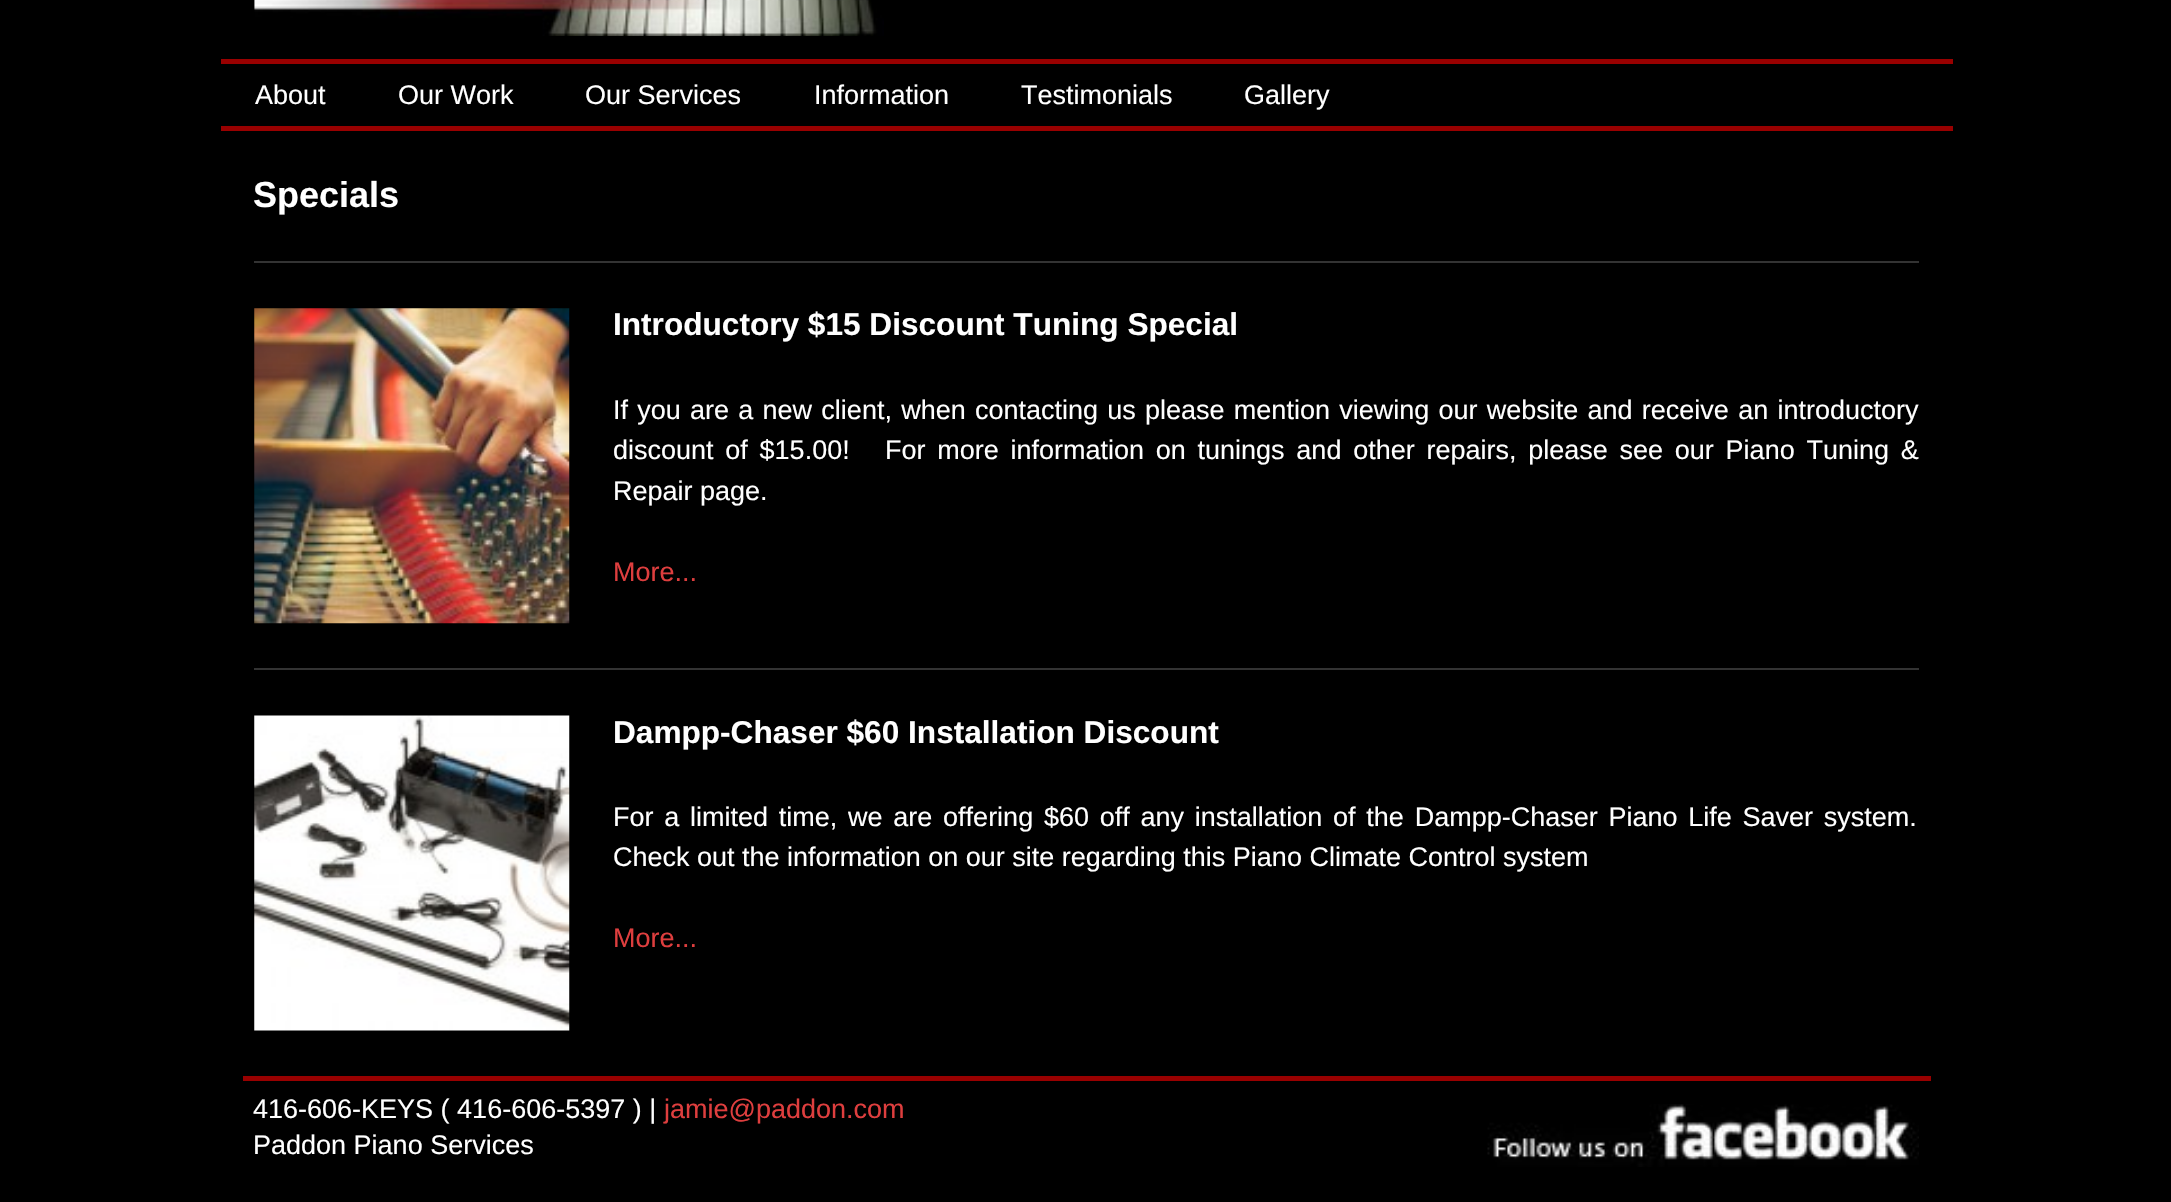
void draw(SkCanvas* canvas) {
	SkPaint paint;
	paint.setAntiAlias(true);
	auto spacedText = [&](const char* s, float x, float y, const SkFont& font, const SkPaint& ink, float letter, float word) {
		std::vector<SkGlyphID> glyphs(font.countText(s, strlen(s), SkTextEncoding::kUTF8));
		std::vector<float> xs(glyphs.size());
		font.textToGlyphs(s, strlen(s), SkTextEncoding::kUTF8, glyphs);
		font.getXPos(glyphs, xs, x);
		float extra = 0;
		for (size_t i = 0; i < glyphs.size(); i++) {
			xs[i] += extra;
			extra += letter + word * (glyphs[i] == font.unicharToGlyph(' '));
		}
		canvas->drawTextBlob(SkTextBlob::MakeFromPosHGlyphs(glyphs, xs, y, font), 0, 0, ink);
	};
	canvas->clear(0xff000000);
	canvas->drawImageRect(SkImages::DeferredFromEncodedData(SkData::MakeFromFileName("img1.png")), SkRect::MakeXYWH(254, 0, 630, 36), SkSamplingOptions());
	paint.setColor(0xff990000);
	canvas->drawRect(SkRect::MakeXYWH(221, 59, 1732, 5), paint);
	canvas->drawRect(SkRect::MakeXYWH(221, 126, 1732, 5), paint);
	SkFont f1(fontMgr->matchFamilyStyle("Liberation Sans", SkFontStyle::Normal()), 27);
	f1.setSubpixel(true);
	paint.setColor(0xffffffff);
	canvas->drawString("About", 255, 104, f1, paint);
	canvas->drawString("Our Work", 398, 104, f1, paint);
	canvas->drawString("Our Services", 585, 104, f1, paint);
	canvas->drawString("Information", 814, 104, f1, paint);
	canvas->drawString("Testimonials", 1021, 104, f1, paint);
	canvas->drawString("Gallery", 1244, 104, f1, paint);
	SkFont f2(fontMgr->matchFamilyStyle("Liberation Sans", SkFontStyle::Bold()), 36);
	f2.setSubpixel(true);
	canvas->drawString("Specials", 253, 207, f2, paint);
	paint.setColor(0xff333333);
	canvas->drawRect(SkRect::MakeXYWH(254, 261, 1665, 2), paint);
	canvas->drawImageRect(SkImages::DeferredFromEncodedData(SkData::MakeFromFileName("img2.png")), SkRect::MakeXYWH(254, 308, 316, 316), SkSamplingOptions());
	SkFont f3(fontMgr->matchFamilyStyle("Liberation Sans", SkFontStyle::Bold()), 31.6);
	f3.setSubpixel(true);
	paint.setColor(0xffffffff);
	canvas->drawString("Introductory $15 Discount Tuning Special", 613, 335, f3, paint);
	spacedText("If you are a new client, when contacting us please mention viewing our website and receive an introductory", 613, 419, f1, paint, 0, 1.75);
	spacedText("discount of $15.00!   For more information on tunings and other repairs, please see our Piano Tuning &", 613, 459, f1, paint, 0, 4.25);
	canvas->drawString("Repair page.", 613, 500, f1, paint);
	paint.setColor(0xffde3e3e);
	canvas->drawString("More...", 613, 581, f1, paint);
	paint.setColor(0xff333333);
	canvas->drawRect(SkRect::MakeXYWH(254, 668, 1665, 2), paint);
	canvas->drawImageRect(SkImages::DeferredFromEncodedData(SkData::MakeFromFileName("img3.png")), SkRect::MakeXYWH(254, 715, 316, 316), SkSamplingOptions());
	paint.setColor(0xffffffff);
	canvas->drawString("Dampp-Chaser $60 Installation Discount", 613, 743, f3, paint);
	spacedText("For a limited time, we are offering $60 off any installation of the Dampp-Chaser Piano Life Saver system.", 613, 826, f1, paint, 0, 3.25);
	canvas->drawString("Check out the information on our site regarding this Piano Climate Control system", 613, 866, f1, paint);
	paint.setColor(0xffde3e3e);
	canvas->drawString("More...", 613, 947, f1, paint);
	paint.setColor(0xff990000);
	canvas->drawRect(SkRect::MakeXYWH(243, 1076, 1688, 5), paint);
	paint.setColor(0xffffffff);
	canvas->drawString("416-606-KEYS ( 416-606-5397 ) |", 253, 1118, f1, paint);
	paint.setColor(0xffde3e3e);
	canvas->drawString("jamie@paddon.com", 664, 1118, f1, paint);
	paint.setColor(0xffffffff);
	canvas->drawString("Paddon Piano Services", 253, 1154, f1, paint);
	canvas->drawImageRect(SkImages::DeferredFromEncodedData(SkData::MakeFromFileName("img4.png")), SkRect::MakeXYWH(1487, 1104, 432, 63), SkSamplingOptions());
}
